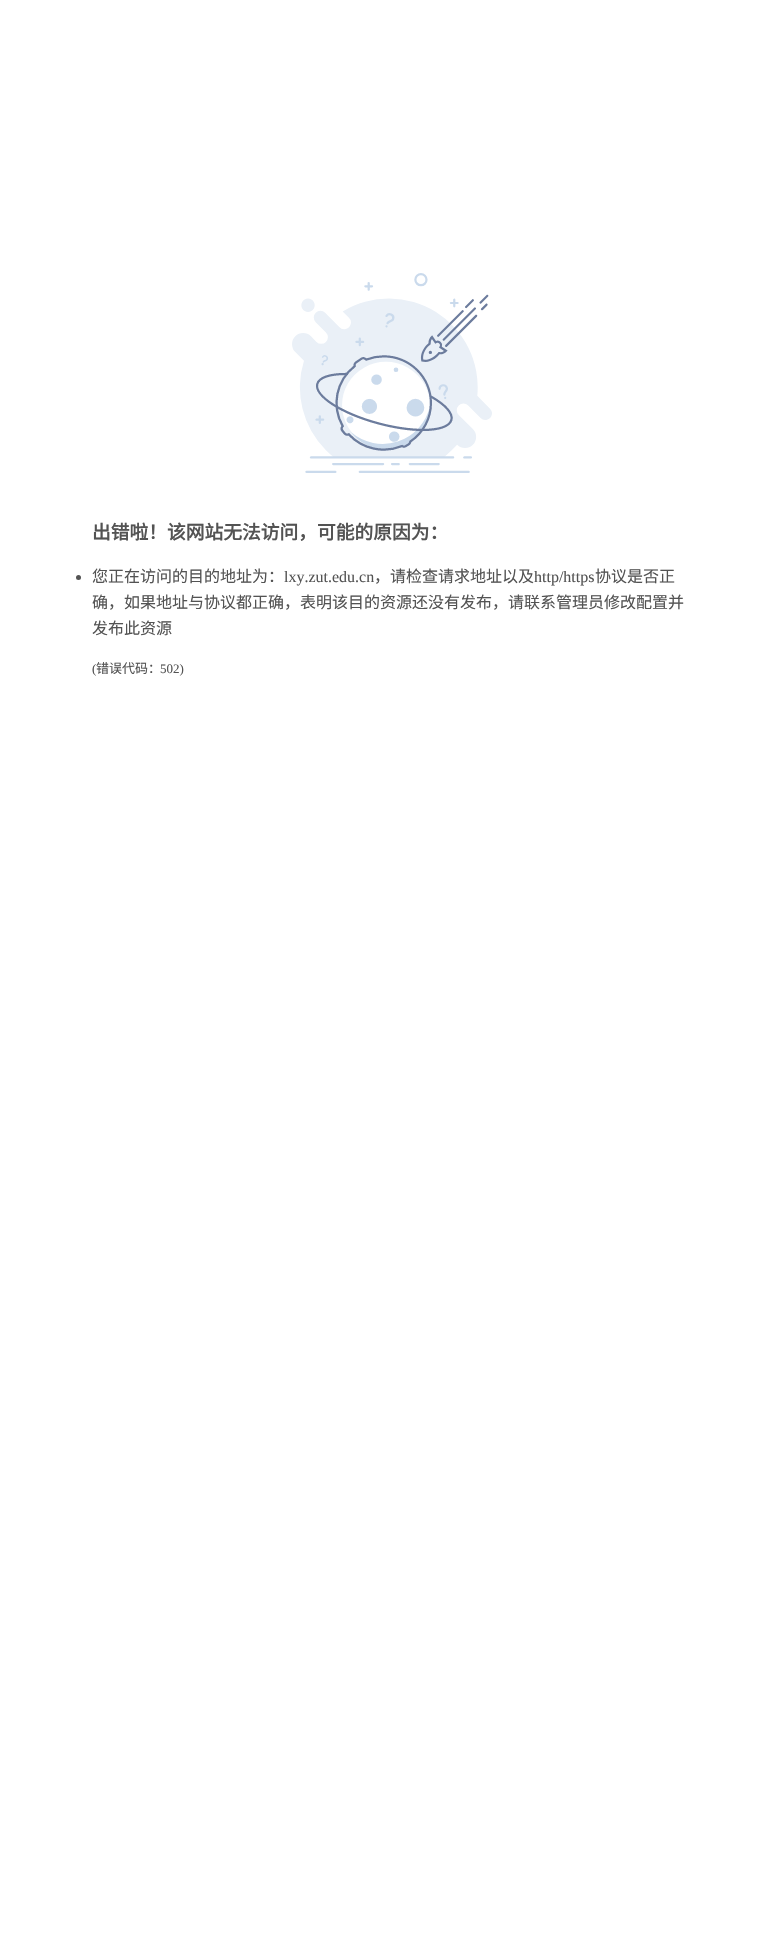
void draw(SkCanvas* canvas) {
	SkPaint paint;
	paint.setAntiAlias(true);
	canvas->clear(0xffffffff);
	canvas->drawImageRect(SkImages::DeferredFromEncodedData(SkData::MakeFromFileName("img1.png")), SkRect::MakeXYWH(292, 273, 200, 200), SkSamplingOptions());
	SkFont f1(fontMgr->matchFamilyStyle("Noto Sans CJK SC", SkFontStyle::Bold()), 18.75);
	f1.setSubpixel(true);
	paint.setColor(0xff535353);
	canvas->drawString("出错啦！该网站无法访问，可能的原因为：", 92, 539, f1, paint);
	canvas->drawCircle(78.5, 577.5, 2.5, paint);
	SkFont f2(fontMgr->matchFamilyStyle("Noto Sans CJK SC", SkFontStyle::Normal()), 16);
	f2.setSubpixel(true);
	canvas->drawString("您正在访问的目的地址为：", 92, 582, f2, paint);
	SkFont f3(fontMgr->matchFamilyStyle("Liberation Serif", SkFontStyle::Normal()), 16);
	f3.setSubpixel(true);
	canvas->drawString("lxy.zut.edu.cn", 284, 582, f3, paint);
	canvas->drawString("，请检查请求地址以及", 374, 582, f2, paint);
	canvas->drawString("http/https", 534, 582, f3, paint);
	canvas->drawString("协议是否正", 595, 582, f2, paint);
	canvas->drawString("确，如果地址与协议都正确，表明该目的资源还没有发布，请联系管理员修改配置并", 92, 608, f2, paint);
	canvas->drawString("发布此资源", 92, 634, f2, paint);
	SkFont f4(fontMgr->matchFamilyStyle("Liberation Serif", SkFontStyle::Normal()), 13);
	f4.setSubpixel(true);
	canvas->drawString("(", 92, 673, f4, paint);
	SkFont f5(fontMgr->matchFamilyStyle("Noto Sans CJK SC", SkFontStyle::Normal()), 13);
	f5.setSubpixel(true);
	canvas->drawString("错误代码：", 96, 673, f5, paint);
	canvas->drawString("502)", 160, 673, f4, paint);
}
